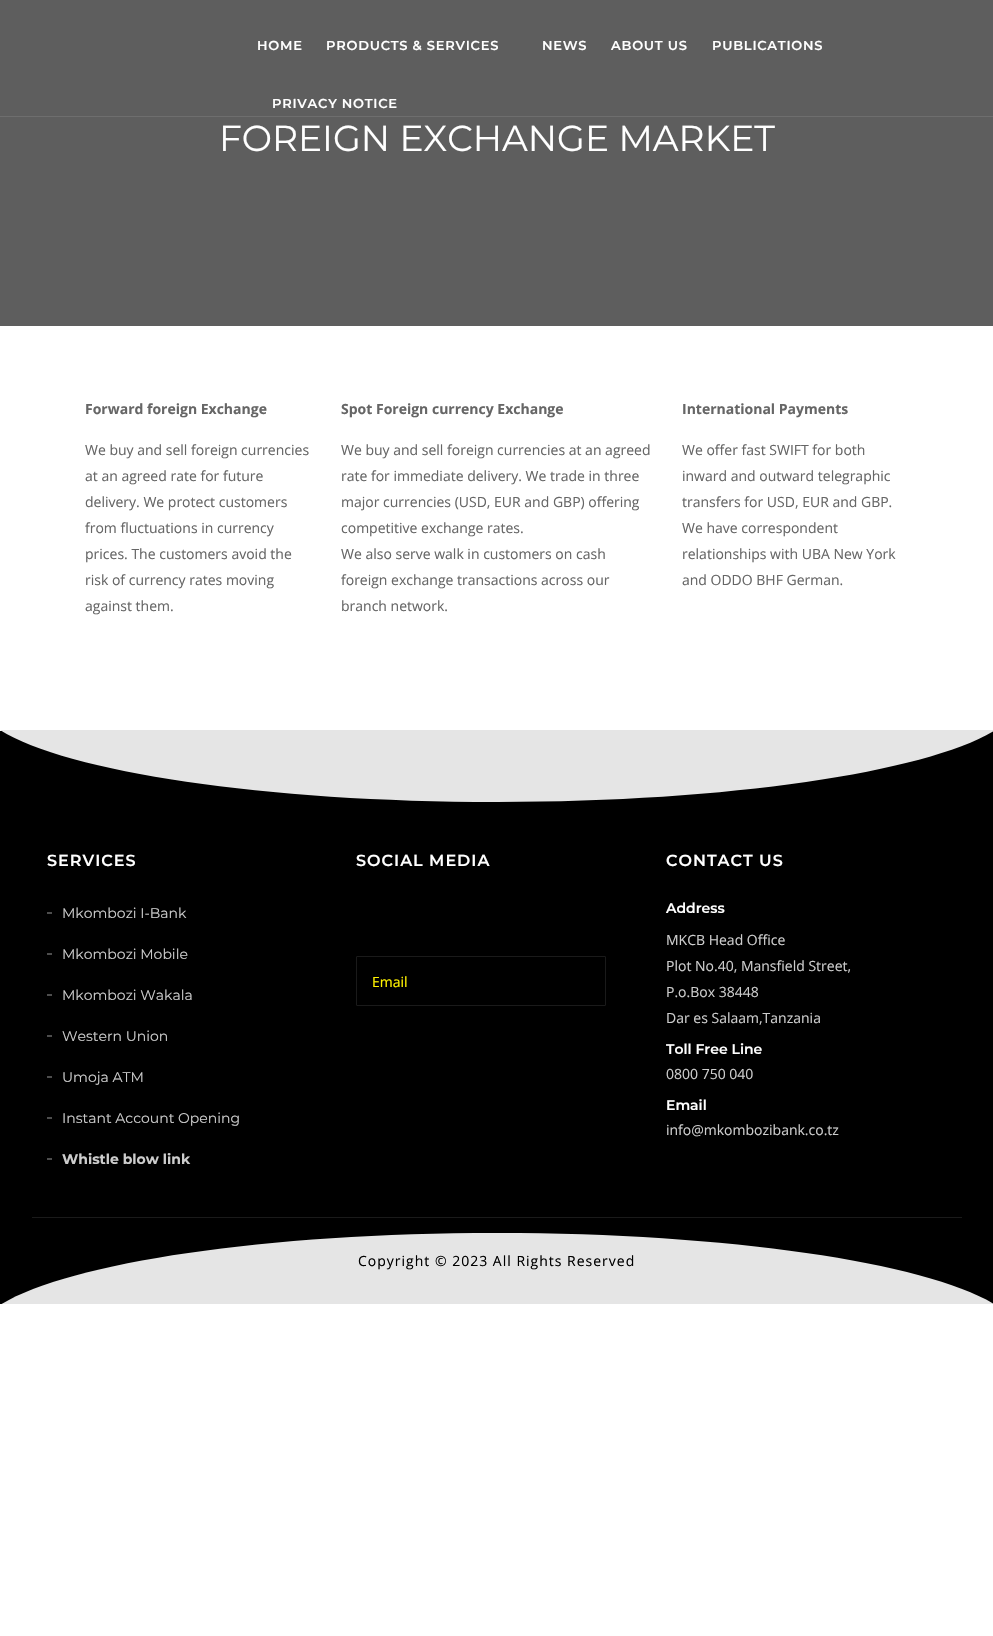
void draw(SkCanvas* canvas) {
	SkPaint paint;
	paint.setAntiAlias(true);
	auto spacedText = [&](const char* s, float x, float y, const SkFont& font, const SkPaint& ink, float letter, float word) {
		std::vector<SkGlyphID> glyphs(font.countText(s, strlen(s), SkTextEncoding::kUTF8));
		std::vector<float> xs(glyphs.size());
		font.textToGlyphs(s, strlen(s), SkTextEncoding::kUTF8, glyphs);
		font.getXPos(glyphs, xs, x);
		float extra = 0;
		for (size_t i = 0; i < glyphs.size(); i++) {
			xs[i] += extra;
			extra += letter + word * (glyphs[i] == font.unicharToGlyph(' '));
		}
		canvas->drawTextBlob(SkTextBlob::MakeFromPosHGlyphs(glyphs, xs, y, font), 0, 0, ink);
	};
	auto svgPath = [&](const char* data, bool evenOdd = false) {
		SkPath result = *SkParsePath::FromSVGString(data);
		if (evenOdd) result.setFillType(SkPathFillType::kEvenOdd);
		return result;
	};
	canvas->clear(0xffffffff);
	paint.setColor(0xff5e5e5e);
	canvas->drawRect(SkRect::MakeXYWH(0, 0, 993, 326), paint);
	paint.setColor(0xff6e6e6e);
	canvas->drawRect(SkRect::MakeXYWH(0, 116, 993, 1), paint);
	SkFont f1(fontMgr->matchFamilyStyle("Montserrat", SkFontStyle(600, SkFontStyle::kNormal_Width, SkFontStyle::kUpright_Slant)), 13);
	f1.setSubpixel(true);
	paint.setColor(0xffffffff);
	spacedText("HOME", 257, 50, f1, paint, 0.75, 0);
	spacedText("PRODUCTS & SERVICES", 326, 50, f1, paint, 0.75, 0);
	spacedText("NEWS", 542, 50, f1, paint, 0.75, 0);
	spacedText("ABOUT US", 611, 50, f1, paint, 0.75, 0);
	spacedText("PUBLICATIONS", 712, 50, f1, paint, 0.75, 0);
	spacedText("PRIVACY NOTICE", 272, 108, f1, paint, 0.75, 0);
	SkFont f2(fontMgr->matchFamilyStyle("Montserrat", SkFontStyle::Normal()), 36);
	f2.setSubpixel(true);
	canvas->drawString("FOREIGN EXCHANGE MARKET", 219, 151, f2, paint);
	SkFont f3(fontMgr->matchFamilyStyle("Open Sans", SkFontStyle::Bold()), 14);
	f3.setSubpixel(true);
	paint.setColor(0xff666666);
	canvas->drawString("Forward foreign Exchange", 85, 414, f3, paint);
	SkFont f4(fontMgr->matchFamilyStyle("Open Sans", SkFontStyle::Normal()), 14);
	f4.setSubpixel(true);
	canvas->drawString("We buy and sell foreign currencies", 85, 455, f4, paint);
	canvas->drawString("at an agreed rate for future", 85, 481, f4, paint);
	canvas->drawString("delivery. We protect customers", 85, 507, f4, paint);
	canvas->drawString("from fluctuations in currency", 85, 533, f4, paint);
	canvas->drawString("prices. The customers avoid the", 85, 559, f4, paint);
	canvas->drawString("risk of currency rates moving", 85, 585, f4, paint);
	canvas->drawString("against them.", 85, 611, f4, paint);
	canvas->drawString("Spot Foreign currency Exchange", 341, 414, f3, paint);
	canvas->drawString("We buy and sell foreign currencies at an agreed", 341, 455, f4, paint);
	canvas->drawString("rate for immediate delivery. We trade in three", 341, 481, f4, paint);
	canvas->drawString("major currencies (USD, EUR and GBP) offering", 341, 507, f4, paint);
	canvas->drawString("competitive exchange rates.", 341, 533, f4, paint);
	canvas->drawString("We also serve walk in customers on cash", 341, 559, f4, paint);
	canvas->drawString("foreign exchange transactions across our", 341, 585, f4, paint);
	canvas->drawString("branch network.", 341, 611, f4, paint);
	canvas->drawString("International Payments", 682, 414, f3, paint);
	canvas->drawString("We offer fast SWIFT for both", 682, 455, f4, paint);
	canvas->drawString("inward and outward telegraphic", 682, 481, f4, paint);
	canvas->drawString("transfers for USD, EUR and GBP.", 682, 507, f4, paint);
	canvas->drawString("We have correspondent", 682, 533, f4, paint);
	canvas->drawString("relationships with UBA New York", 682, 559, f4, paint);
	canvas->drawString("and ODDO BHF German.", 682, 585, f4, paint);
	paint.setColor(0xff000000);
	canvas->drawRect(SkRect::MakeXYWH(0, 731, 993, 573), paint);
	paint.setColor(0xffe5e5e5);
	canvas->drawPath(svgPath("M0 730C67 772 264 802 497 802C730 802 926 772 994 731V730Z"), paint);
	SkFont f5(fontMgr->matchFamilyStyle("Montserrat", SkFontStyle(600, SkFontStyle::kNormal_Width, SkFontStyle::kUpright_Slant)), 16);
	f5.setSubpixel(true);
	paint.setColor(0xffffffff);
	spacedText("SERVICES", 47, 866, f5, paint, 1, 0);
	paint.setColor(0xff4d4d4d);
	canvas->drawRect(SkRect::MakeXYWH(47, 912, 5, 2), paint);
	SkFont f6(fontMgr->matchFamilyStyle("Montserrat", SkFontStyle::Normal()), 14);
	f6.setSubpixel(true);
	paint.setColor(0xffcccccc);
	canvas->drawString("Mkombozi I-Bank", 62, 918, f6, paint);
	paint.setColor(0xff4d4d4d);
	canvas->drawRect(SkRect::MakeXYWH(47, 953, 5, 2), paint);
	paint.setColor(0xffcccccc);
	canvas->drawString("Mkombozi Mobile", 62, 959, f6, paint);
	paint.setColor(0xff4d4d4d);
	canvas->drawRect(SkRect::MakeXYWH(47, 994, 5, 2), paint);
	paint.setColor(0xffcccccc);
	canvas->drawString("Mkombozi Wakala", 62, 1000, f6, paint);
	paint.setColor(0xff4d4d4d);
	canvas->drawRect(SkRect::MakeXYWH(47, 1035, 5, 2), paint);
	paint.setColor(0xffcccccc);
	canvas->drawString("Western Union", 62, 1041, f6, paint);
	paint.setColor(0xff4d4d4d);
	canvas->drawRect(SkRect::MakeXYWH(47, 1076, 5, 2), paint);
	paint.setColor(0xffcccccc);
	canvas->drawString("Umoja ATM", 62, 1082, f6, paint);
	paint.setColor(0xff4d4d4d);
	canvas->drawRect(SkRect::MakeXYWH(47, 1117, 5, 2), paint);
	paint.setColor(0xffcccccc);
	canvas->drawString("Instant Account Opening", 62, 1123, f6, paint);
	paint.setColor(0xff4d4d4d);
	canvas->drawRect(SkRect::MakeXYWH(47, 1158, 5, 2), paint);
	SkFont f7(fontMgr->matchFamilyStyle("Montserrat", SkFontStyle::Bold()), 14);
	f7.setSubpixel(true);
	paint.setColor(0xffcccccc);
	canvas->drawString("Whistle blow link", 62, 1164, f7, paint);
	paint.setColor(0xffffffff);
	spacedText("SOCIAL MEDIA", 356, 866, f5, paint, 1, 0);
	paint.setStroke(true);
	paint.setStrokeWidth(1);
	paint.setColor(0xff1a1a1a);
	canvas->drawRoundRect(SkRect::MakeXYWH(356.5, 956.5, 249, 49), 0.5, 0.5, paint);
	paint.setStroke(false);
	paint.setColor(0xfffff200);
	canvas->drawString("Email", 372, 987, f4, paint);
	paint.setColor(0xffffffff);
	spacedText("CONTACT US", 666, 866, f5, paint, 1, 0);
	SkFont f8(fontMgr->matchFamilyStyle("Montserrat", SkFontStyle(600, SkFontStyle::kNormal_Width, SkFontStyle::kUpright_Slant)), 14);
	f8.setSubpixel(true);
	canvas->drawString("Address", 666, 913, f8, paint);
	paint.setColor(0xffcccccc);
	canvas->drawString("MKCB Head Office", 666, 945, f4, paint);
	canvas->drawString("Plot No.40, Mansfield Street,", 666, 971, f4, paint);
	canvas->drawString("P.o.Box 38448", 666, 997, f4, paint);
	canvas->drawString("Dar es Salaam,Tanzania", 666, 1023, f4, paint);
	paint.setColor(0xffffffff);
	canvas->drawString("Toll Free Line", 666, 1054, f8, paint);
	paint.setColor(0xffcccccc);
	canvas->drawString("0800 750 040", 666, 1079, f4, paint);
	paint.setColor(0xffffffff);
	canvas->drawString("Email", 666, 1110, f8, paint);
	paint.setColor(0xffcccccc);
	canvas->drawString("info@mkombozibank.co.tz", 666, 1135, f4, paint);
	paint.setColor(0xff1a1a1a);
	canvas->drawRect(SkRect::MakeXYWH(32, 1217, 930, 1), paint);
	canvas->save();
	canvas->clipRect(SkRect::MakeXYWH(0, 1215, 993, 89));
	paint.setColor(0xffe5e5e5);
	canvas->drawPath(svgPath("M0 1305C67 1263 264 1233 497 1233C730 1233 926 1263 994 1304V1305Z"), paint);
	canvas->restore();
	paint.setColor(0xff000000);
	spacedText("Copyright © 2023 All Rights Reserved", 358, 1266, f4, paint, 1, 0);
}
